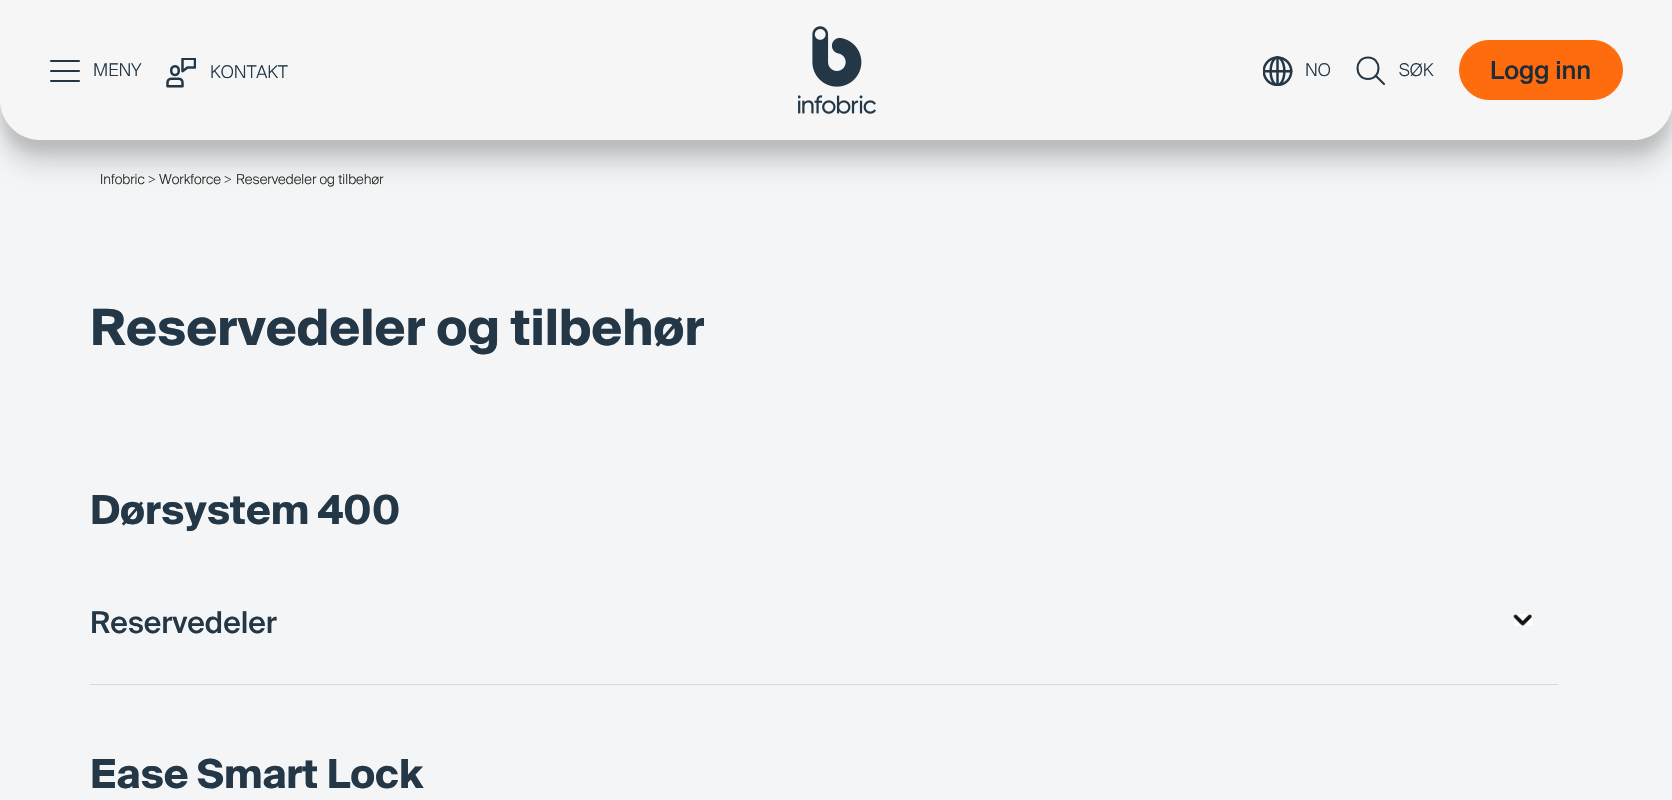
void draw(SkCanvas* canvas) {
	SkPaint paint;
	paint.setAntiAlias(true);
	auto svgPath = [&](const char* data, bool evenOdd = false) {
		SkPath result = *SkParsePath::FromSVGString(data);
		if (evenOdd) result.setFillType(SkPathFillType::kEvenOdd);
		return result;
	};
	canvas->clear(0xfff4f5f6);
	paint.setColor(0x24000000);
	paint.setMaskFilter(SkMaskFilter::MakeBlur(kNormal_SkBlurStyle, 12.5));
	canvas->drawRoundRect(SkRect::MakeXYWH(0, 25, 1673, 140), 40, 40, paint);
	paint.setMaskFilter(nullptr);
	paint.setColor(0x1a000000);
	paint.setMaskFilter(SkMaskFilter::MakeBlur(kNormal_SkBlurStyle, 6));
	canvas->drawRoundRect(SkRect::MakeXYWH(0, 13, 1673, 140), 40, 40, paint);
	paint.setMaskFilter(nullptr);
	paint.setColor(0xfff6f6f6);
	canvas->drawPath(svgPath("M0 0H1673V100C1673 122 1655 140 1633 140H40C18 140 0 122 0 100Z"), paint);
	paint.setStroke(true);
	paint.setStrokeWidth(2);
	paint.setStrokeCap(SkPaint::kRound_Cap);
	paint.setStrokeJoin(SkPaint::kRound_Join);
	paint.setColor(0xff243746);
	canvas->drawPath(svgPath("M51 61H79M51 71H79M51 81H79"), paint);
	SkFont f1(fontMgr->matchFamilyStyle("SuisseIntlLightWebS", SkFontStyle(300, SkFontStyle::kNormal_Width, SkFontStyle::kUpright_Slant)), 17.5);
	f1.setSubpixel(true);
	paint.setStroke(false);
	canvas->drawString("MENY", 93, 76, f1, paint);
	canvas->drawImageRect(SkImages::DeferredFromEncodedData(SkData::MakeFromFileName("img1.png")), SkRect::MakeXYWH(166, 58, 30, 30), SkSamplingOptions());
	canvas->drawString("KONTAKT", 210, 78, f1, paint);
	canvas->drawImageRect(SkImages::DeferredFromEncodedData(SkData::MakeFromFileName("img2.png")), SkRect::MakeXYWH(798, 26, 78, 88), SkSamplingOptions());
	canvas->drawImageRect(SkImages::DeferredFromEncodedData(SkData::MakeFromFileName("img3.png")), SkRect::MakeXYWH(1263, 56, 30, 30), SkSamplingOptions());
	canvas->drawString("NO", 1305, 76, f1, paint);
	paint.setStroke(true);
	paint.setStrokeWidth(2.1);
	canvas->drawPath(svgPath("M1375.5 75.5L1384 84M1368 79C1382 79 1382 57.5 1368 57.5C1354 57.5 1354 79 1368 79Z"), paint);
	paint.setStroke(false);
	canvas->drawString("SØK", 1399, 76, f1, paint);
	paint.setColor(0xffff6c0e);
	canvas->drawRoundRect(SkRect::MakeXYWH(1459.5, 40.5, 163, 59), 29.5, 29.5, paint);
	paint.setStroke(true);
	paint.setStrokeWidth(1);
	paint.setStrokeCap(SkPaint::kButt_Cap);
	paint.setStrokeJoin(SkPaint::kMiter_Join);
	canvas->drawRoundRect(SkRect::MakeXYWH(1459.5, 40.5, 163, 59), 29.5, 29.5, paint);
	SkFont f2(fontMgr->matchFamilyStyle("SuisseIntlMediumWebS", SkFontStyle(500, SkFontStyle::kNormal_Width, SkFontStyle::kUpright_Slant)), 25);
	f2.setSubpixel(true);
	paint.setStroke(false);
	paint.setColor(0xff1d2c38);
	canvas->drawString("Logg inn", 1490, 79, f2, paint);
	SkFont f3(fontMgr->matchFamilyStyle("SuisseIntlLightWebS", SkFontStyle(300, SkFontStyle::kNormal_Width, SkFontStyle::kUpright_Slant)), 13.75);
	f3.setSubpixel(true);
	paint.setColor(0xff272726);
	canvas->drawString("Infobric", 100, 184, f3, paint);
	SkFont f4(fontMgr->matchFamilyStyle("Liberation Serif", SkFontStyle::Normal()), 13.75);
	f4.setSubpixel(true);
	canvas->drawString(">", 148, 184, f4, paint);
	canvas->drawString("Workforce", 159, 184, f3, paint);
	canvas->drawString(">", 224, 184, f4, paint);
	canvas->drawString("Reservedeler og tilbehør", 236, 184, f3, paint);
	SkFont f5(fontMgr->matchFamilyStyle("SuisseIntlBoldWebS", SkFontStyle::Bold()), 50);
	f5.setSubpixel(true);
	paint.setColor(0xff243746);
	canvas->drawString("Reservedeler og tilbehør", 90, 345, f5, paint);
	SkFont f6(fontMgr->matchFamilyStyle("SuisseIntlBoldWebS", SkFontStyle::Bold()), 40);
	f6.setSubpixel(true);
	canvas->drawString("Dørsystem 400", 90, 524, f6, paint);
	canvas->drawImageRect(SkImages::DeferredFromEncodedData(SkData::MakeFromFileName("img4.png")), SkRect::MakeXYWH(1513, 614, 20, 12), SkSamplingOptions());
	paint.setColor(0xffd8d8d8);
	canvas->drawRect(SkRect::MakeXYWH(90, 684, 1468, 1), paint);
	SkFont f7(fontMgr->matchFamilyStyle("SuisseIntlMediumWebS", SkFontStyle(500, SkFontStyle::kNormal_Width, SkFontStyle::kUpright_Slant)), 30);
	f7.setSubpixel(true);
	paint.setColor(0xff243746);
	canvas->drawString("Reservedeler", 90, 633, f7, paint);
	canvas->drawString("Ease Smart Lock", 90, 788, f6, paint);
}
